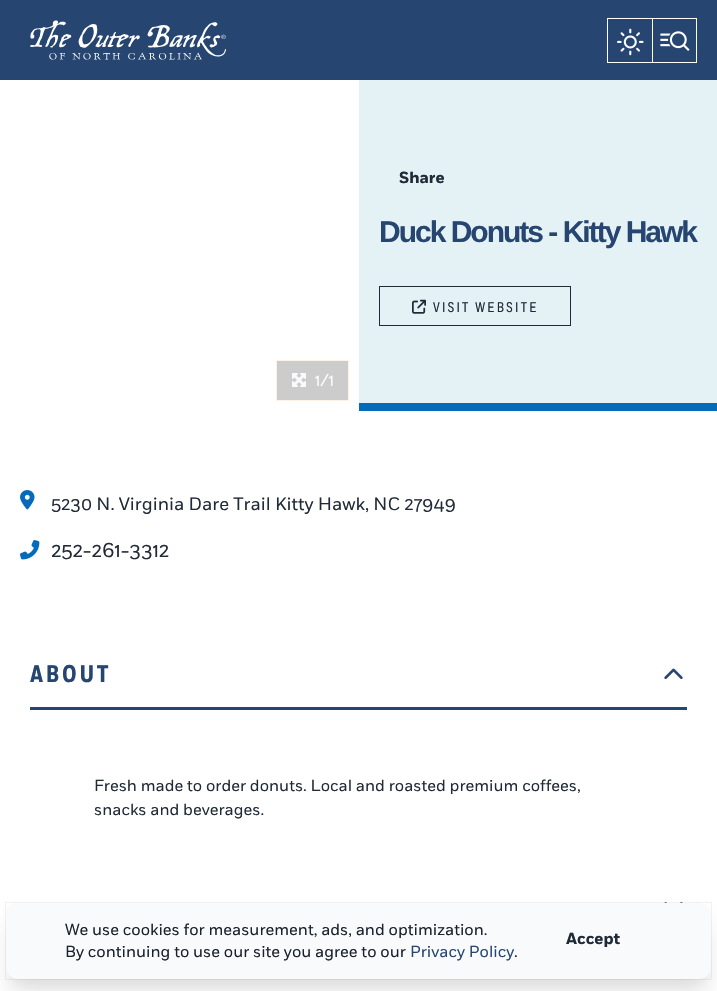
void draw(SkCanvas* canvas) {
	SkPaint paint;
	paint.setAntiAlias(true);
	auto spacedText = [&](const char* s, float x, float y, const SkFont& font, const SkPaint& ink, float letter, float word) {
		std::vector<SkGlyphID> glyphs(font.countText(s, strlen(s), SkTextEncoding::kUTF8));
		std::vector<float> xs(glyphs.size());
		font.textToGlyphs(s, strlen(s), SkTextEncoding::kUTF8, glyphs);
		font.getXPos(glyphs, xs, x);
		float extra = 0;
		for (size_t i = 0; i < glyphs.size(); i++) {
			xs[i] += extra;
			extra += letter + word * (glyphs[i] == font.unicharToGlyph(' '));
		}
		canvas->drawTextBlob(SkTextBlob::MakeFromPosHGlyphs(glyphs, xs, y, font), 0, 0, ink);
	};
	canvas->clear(0xffffffff);
	paint.setColor(0xff264671);
	canvas->drawRect(SkRect::MakeXYWH(0, 0, 717, 80), paint);
	canvas->drawImageRect(SkImages::DeferredFromEncodedData(SkData::MakeFromFileName("img1.png")), SkRect::MakeXYWH(30, 20, 196, 40), SkSamplingOptions());
	paint.setColor(0xffffffff);
	canvas->drawRect(SkRect::MakeXYWH(607, 18, 45, 1), paint);
	canvas->drawRect(SkRect::MakeXYWH(607, 62, 45, 1), paint);
	canvas->drawRect(SkRect::MakeXYWH(607, 18, 1, 45), paint);
	canvas->drawImageRect(SkImages::DeferredFromEncodedData(SkData::MakeFromFileName("img2.png")), SkRect::MakeXYWH(617, 28, 27, 28), SkSamplingOptions());
	paint.setStroke(true);
	paint.setStrokeWidth(1);
	canvas->drawRect(SkRect::MakeXYWH(652.5, 18.5, 44, 44), paint);
	canvas->drawImageRect(SkImages::DeferredFromEncodedData(SkData::MakeFromFileName("img3.png")), SkRect::MakeXYWH(660, 31, 30, 20), SkSamplingOptions());
	paint.setStroke(false);
	paint.setColor(0xffe4f1f5);
	canvas->drawRect(SkRect::MakeXYWH(359, 80, 358, 323), paint);
	paint.setColor(0xff046ab9);
	canvas->drawRect(SkRect::MakeXYWH(359, 403, 358, 8), paint);
	SkFont f1(fontMgr->matchFamilyStyle("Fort", SkFontStyle::Bold()), 16);
	f1.setSubpixel(true);
	paint.setColor(0xff212b38);
	canvas->drawString("Share", 399, 183, f1, paint);
	SkFont f2(fontMgr->matchFamilyStyle("Liberation Sans", SkFontStyle::Bold()), 30);
	f2.setSubpixel(true);
	paint.setColor(0xff264671);
	spacedText("Duck Donuts - Kitty Hawk", 379, 242, f2, paint, -2, 0);
	paint.setStroke(true);
	paint.setColor(0xff212b38);
	canvas->drawRect(SkRect::MakeXYWH(379.5, 286.5, 191, 39), paint);
	canvas->drawImageRect(SkImages::DeferredFromEncodedData(SkData::MakeFromFileName("img4.png")), SkRect::MakeXYWH(412, 299, 14, 15), SkSamplingOptions());
	SkFont f3(fontMgr->matchFamilyStyle("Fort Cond", SkFontStyle::Normal()), 14);
	f3.setSubpixel(true);
	paint.setStroke(false);
	spacedText("VISIT WEBSITE", 433, 312, f3, paint, 2.25, 0);
	paint.setColor(0xffcccccc);
	canvas->drawRect(SkRect::MakeXYWH(276.5, 360.5, 72, 40), paint);
	paint.setStroke(true);
	paint.setColor(0xfffff2e5);
	canvas->drawRect(SkRect::MakeXYWH(276.5, 360.5, 72, 40), paint);
	canvas->drawImageRect(SkImages::DeferredFromEncodedData(SkData::MakeFromFileName("img5.png")), SkRect::MakeXYWH(292, 373, 14, 14), SkSamplingOptions());
	SkFont f4(fontMgr->matchFamilyStyle("Fort", SkFontStyle::Normal()), 17);
	f4.setSubpixel(true);
	paint.setStroke(false);
	paint.setColor(0xfff8fafc);
	canvas->drawString("1/1", 315, 386, f4, paint);
	canvas->drawImageRect(SkImages::DeferredFromEncodedData(SkData::MakeFromFileName("img6.png")), SkRect::MakeXYWH(20, 490, 15, 20), SkSamplingOptions());
	SkFont f5(fontMgr->matchFamilyStyle("Fort", SkFontStyle::Normal()), 18);
	f5.setSubpixel(true);
	paint.setColor(0xff212b38);
	canvas->drawString("5230 N. Virginia Dare Trail", 51, 510, f5, paint);
	canvas->drawString("Kitty Hawk, NC 27949", 275, 510, f5, paint);
	canvas->drawImageRect(SkImages::DeferredFromEncodedData(SkData::MakeFromFileName("img7.png")), SkRect::MakeXYWH(20, 540, 20, 20), SkSamplingOptions());
	SkFont f6(fontMgr->matchFamilyStyle("Fort", SkFontStyle::Normal()), 20);
	f6.setSubpixel(true);
	canvas->drawString("252-261-3312", 51, 557, f6, paint);
	paint.setColor(0xff264671);
	canvas->drawRect(SkRect::MakeXYWH(30, 707, 657, 3), paint);
	SkFont f7(fontMgr->matchFamilyStyle("Fort Cond", SkFontStyle::Bold()), 24);
	f7.setSubpixel(true);
	spacedText("ABOUT", 30, 682, f7, paint, 3, 0);
	canvas->drawImageRect(SkImages::DeferredFromEncodedData(SkData::MakeFromFileName("img8.png")), SkRect::MakeXYWH(664, 668, 19, 11), SkSamplingOptions());
	SkFont f8(fontMgr->matchFamilyStyle("Fort", SkFontStyle::Normal()), 16);
	f8.setSubpixel(true);
	paint.setColor(0xff212b38);
	canvas->drawString("Fresh made to order donuts. Local and roasted premium coffees,", 94, 791, f8, paint);
	canvas->drawString("snacks and beverages.", 94, 815, f8, paint);
	canvas->drawImageRect(SkImages::DeferredFromEncodedData(SkData::MakeFromFileName("img9.png")), SkRect::MakeXYWH(664, 902, 19, 1), SkSamplingOptions());
	paint.setColor(0x0a000000);
	paint.setMaskFilter(SkMaskFilter::MakeBlur(kNormal_SkBlurStyle, 5));
	canvas->drawRoundRect(SkRect::MakeXYWH(11, 918, 695, 66), 7, 7, paint);
	paint.setMaskFilter(nullptr);
	paint.setColor(0x1a000000);
	paint.setMaskFilter(SkMaskFilter::MakeBlur(kNormal_SkBlurStyle, 12.5));
	canvas->drawRoundRect(SkRect::MakeXYWH(11, 928, 695, 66), 7, 7, paint);
	paint.setMaskFilter(nullptr);
	paint.setStroke(true);
	paint.setColor(0x0d000000);
	canvas->drawRect(SkRect::MakeXYWH(5.5, 902.5, 706, 77), paint);
	paint.setStroke(false);
	paint.setColor(0xfff8fafc);
	canvas->drawRoundRect(SkRect::MakeXYWH(6, 903, 705, 76), 12, 12, paint);
	paint.setColor(0xff1a222d);
	canvas->drawString("We use cookies for measurement, ads, and optimization.", 65, 935, f8, paint);
	canvas->drawString("By continuing to use our site you agree to our", 65, 957, f8, paint);
	paint.setColor(0xff264671);
	canvas->drawString("Privacy Policy", 410, 957, f8, paint);
	paint.setColor(0xff1a222d);
	canvas->drawString(".", 514, 957, f8, paint);
	paint.setColor(0xff212b38);
	canvas->drawString("Accept", 566, 944, f1, paint);
}
